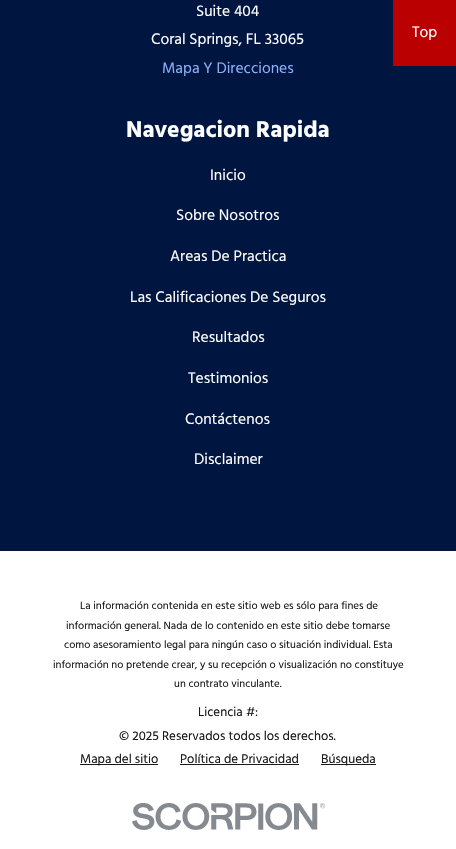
void draw(SkCanvas* canvas) {
	SkPaint paint;
	paint.setAntiAlias(true);
	canvas->clear(0xffffffff);
	paint.setColor(0xff00153f);
	canvas->drawRect(SkRect::MakeXYWH(0, 0, 456, 551), paint);
	SkFont f1(fontMgr->matchFamilyStyle("Hind", SkFontStyle::Normal()), 15.6);
	f1.setSubpixel(true);
	paint.setColor(0xffffffff);
	canvas->drawString("Suite 404", 196, 16, f1, paint);
	canvas->drawString("Coral Springs, FL 33065", 151, 44, f1, paint);
	paint.setColor(0xff8cb0f8);
	canvas->drawString("Mapa Y Direcciones", 162, 73, f1, paint);
	SkFont f2(fontMgr->matchFamilyStyle("Hind", SkFontStyle::Bold()), 23.5);
	f2.setSubpixel(true);
	paint.setColor(0xffffffff);
	canvas->drawString("Navegacion Rapida", 126, 137, f2, paint);
	canvas->drawString("Inicio", 210, 180, f1, paint);
	canvas->drawString("Sobre Nosotros", 176, 220, f1, paint);
	canvas->drawString("Areas De Practica", 170, 261, f1, paint);
	canvas->drawString("Las Calificaciones De Seguros", 130, 302, f1, paint);
	canvas->drawString("Resultados", 192, 342, f1, paint);
	canvas->drawString("Testimonios", 188, 383, f1, paint);
	canvas->drawString("Contáctenos", 185, 424, f1, paint);
	canvas->drawString("Disclaimer", 194, 464, f1, paint);
	SkFont f3(fontMgr->matchFamilyStyle("Hind", SkFontStyle::Normal()), 10.9);
	f3.setSubpixel(true);
	paint.setColor(0xff191919);
	canvas->drawString("La información contenida en este sitio web es sólo para fines de", 80, 609, f3, paint);
	canvas->drawString("información general. Nada de lo contenido en este sitio debe tomarse", 66, 629, f3, paint);
	canvas->drawString("como asesoramiento legal para ningún caso o situación individual. Esta", 64, 648, f3, paint);
	canvas->drawString("información no pretende crear, y su recepción o visualización no constituye", 53, 668, f3, paint);
	canvas->drawString("un contrato vinculante.", 174, 687, f3, paint);
	SkFont f4(fontMgr->matchFamilyStyle("Hind", SkFontStyle::Normal()), 13);
	f4.setSubpixel(true);
	canvas->drawString("Licencia #:", 198, 716, f4, paint);
	canvas->drawString("© 2025 Reservados todos los derechos.", 119, 740, f4, paint);
	canvas->drawRect(SkRect::MakeXYWH(80, 764, 78, 1), paint);
	canvas->drawString("Mapa del sitio", 80, 763, f4, paint);
	canvas->drawString("Política de Privacidad", 180, 763, f4, paint);
	canvas->drawRect(SkRect::MakeXYWH(180, 764, 119, 1), paint);
	canvas->drawRect(SkRect::MakeXYWH(321, 764, 55, 1), paint);
	canvas->drawString("Búsqueda", 321, 763, f4, paint);
	canvas->drawImageRect(SkImages::DeferredFromEncodedData(SkData::MakeFromFileName("img1.png")), SkRect::MakeXYWH(132, 803, 193, 27), SkSamplingOptions());
	paint.setColor(0xffba0000);
	canvas->drawRect(SkRect::MakeXYWH(393, 0, 63, 66), paint);
	paint.setColor(0xffffffff);
	canvas->drawString("Top", 412, 37, f1, paint);
}
